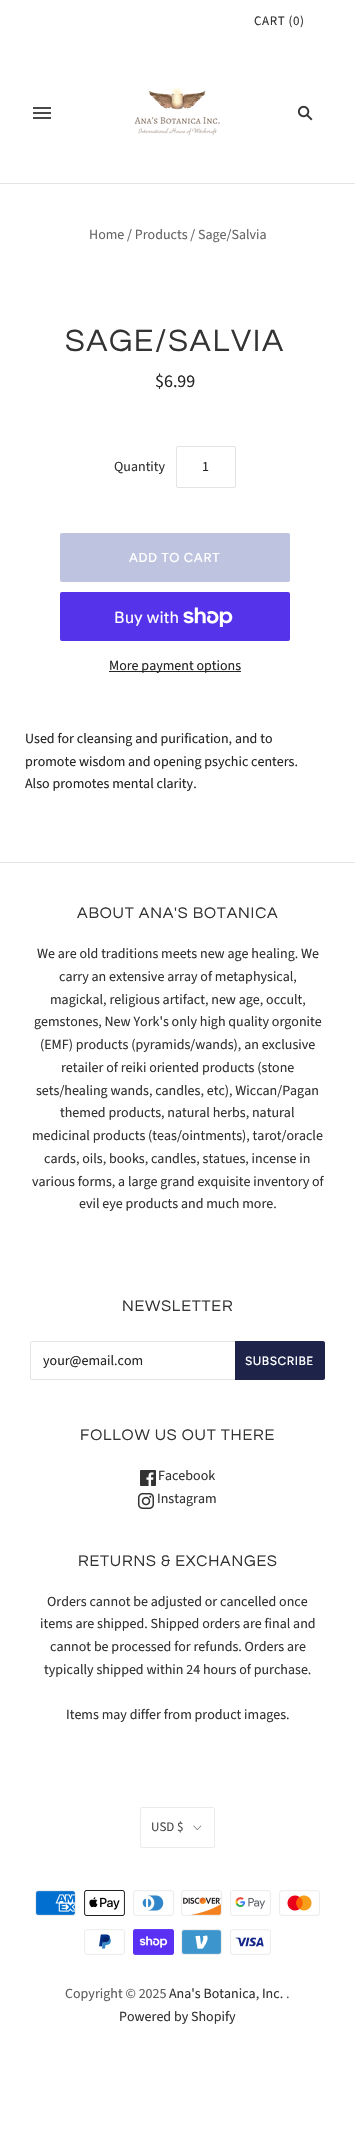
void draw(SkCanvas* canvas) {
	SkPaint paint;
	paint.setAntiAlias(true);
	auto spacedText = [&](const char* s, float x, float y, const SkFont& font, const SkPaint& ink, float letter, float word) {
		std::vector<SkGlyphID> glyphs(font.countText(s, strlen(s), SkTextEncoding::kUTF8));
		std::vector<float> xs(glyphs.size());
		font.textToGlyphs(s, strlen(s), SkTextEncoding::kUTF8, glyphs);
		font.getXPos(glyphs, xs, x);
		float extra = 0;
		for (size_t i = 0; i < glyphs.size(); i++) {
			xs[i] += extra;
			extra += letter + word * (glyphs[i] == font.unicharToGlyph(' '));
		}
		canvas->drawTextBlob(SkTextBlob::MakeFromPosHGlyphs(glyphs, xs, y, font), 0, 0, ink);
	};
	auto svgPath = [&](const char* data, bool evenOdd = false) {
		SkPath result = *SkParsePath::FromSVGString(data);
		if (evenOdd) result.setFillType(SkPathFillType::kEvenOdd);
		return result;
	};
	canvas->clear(0xffffffff);
	paint.setColor(0xffe4e4e4);
	canvas->drawRect(SkRect::MakeXYWH(0, 183, 355, 1), paint);
	SkFont f1(fontMgr->matchFamilyStyle("Source Sans Pro", SkFontStyle::Normal()), 13);
	f1.setSubpixel(true);
	paint.setColor(0xff333333);
	spacedText("CART (0)", 254, 25, f1, paint, 0.6, 0);
	canvas->drawImageRect(SkImages::DeferredFromEncodedData(SkData::MakeFromFileName("img1.png")), SkRect::MakeXYWH(33, 107, 18, 12), SkSamplingOptions());
	canvas->drawImageRect(SkImages::DeferredFromEncodedData(SkData::MakeFromFileName("img2.png")), SkRect::MakeXYWH(134, 87, 86, 49), SkSamplingOptions());
	canvas->drawImageRect(SkImages::DeferredFromEncodedData(SkData::MakeFromFileName("img3.png")), SkRect::MakeXYWH(297, 105, 16, 16), SkSamplingOptions());
	SkFont f2(fontMgr->matchFamilyStyle("Source Sans Pro", SkFontStyle::Normal()), 14);
	f2.setSubpixel(true);
	paint.setColor(0xff656565);
	canvas->drawString("Home / Products / Sage/Salvia", 89, 239, f2, paint);
	SkFont f3(fontMgr->matchFamilyStyle("Questrial", SkFontStyle::Normal()), 32);
	f3.setSubpixel(true);
	paint.setColor(0xff333333);
	spacedText("SAGE/SALVIA", 65, 351, f3, paint, 1.6, 0);
	SkFont f4(fontMgr->matchFamilyStyle("Source Sans Pro", SkFontStyle::Normal()), 18);
	f4.setSubpixel(true);
	paint.setColor(0xff262626);
	canvas->drawString("$6.99", 155, 387, f4, paint);
	paint.setColor(0xff333333);
	canvas->drawString("Quantity", 114, 471, f2, paint);
	paint.setStroke(true);
	paint.setStrokeWidth(1);
	paint.setColor(0xffe4e4e4);
	canvas->drawRoundRect(SkRect::MakeXYWH(176.5, 446.5, 59, 41), 1.5, 1.5, paint);
	paint.setStroke(false);
	paint.setColor(0xff262626);
	canvas->drawString("1", 202, 471, f2, paint);
	paint.setColor(0xffbec3e0);
	canvas->drawRoundRect(SkRect::MakeXYWH(60, 533, 230, 49), 2, 2, paint);
	SkFont f5(fontMgr->matchFamilyStyle("Figtree", SkFontStyle(500, SkFontStyle::kNormal_Width, SkFontStyle::kUpright_Slant)), 13);
	f5.setSubpixel(true);
	paint.setColor(0xffffffff);
	spacedText("ADD TO CART", 129, 562, f5, paint, 0.6, 0);
	paint.setColor(0xff5433eb);
	canvas->drawRoundRect(SkRect::MakeXYWH(60, 592, 230, 49), 2, 2, paint);
	SkFont f6(fontMgr->matchFamilyStyle("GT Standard", SkFontStyle::Normal()), 16);
	f6.setSubpixel(true);
	paint.setColor(0xffffffff);
	canvas->drawString("Buy with", 114, 623, f6, paint);
	canvas->drawImageRect(SkImages::DeferredFromEncodedData(SkData::MakeFromFileName("img4.png")), SkRect::MakeXYWH(183, 607, 50, 20), SkSamplingOptions());
	paint.setColor(0xff262626);
	canvas->drawRect(SkRect::MakeXYWH(109, 671, 132, 1), paint);
	canvas->drawString("More payment options", 109, 670, f2, paint);
	canvas->drawString("Used for cleansing and purification, and to", 25, 743, f2, paint);
	canvas->drawString("promote wisdom and opening psychic centers.", 25, 766, f2, paint);
	canvas->drawString("Also promotes mental clarity.", 25, 788, f2, paint);
	paint.setColor(0xffe4e4e4);
	canvas->drawRect(SkRect::MakeXYWH(0, 862, 355, 1), paint);
	SkFont f7(fontMgr->matchFamilyStyle("Questrial", SkFontStyle::Normal()), 16);
	f7.setSubpixel(true);
	paint.setColor(0xff333333);
	spacedText("ABOUT ANA'S BOTANICA", 77, 918, f7, paint, 0.8, 0);
	canvas->drawString("We are old traditions meets new age healing. We", 37, 958, f2, paint);
	canvas->drawString("carry an extensive array of metaphysical,", 59, 981, f2, paint);
	canvas->drawString("magickal, religious artifact, new age, occult,", 50, 1004, f2, paint);
	canvas->drawString("gemstones, New York's only high quality orgonite", 34, 1026, f2, paint);
	canvas->drawString("(EMF) products (pyramids/wands), an exclusive", 40, 1049, f2, paint);
	canvas->drawString("retailer of reiki oriented products (stone", 61, 1072, f2, paint);
	canvas->drawString("sets/healing wands, candles, etc), Wiccan/Pagan", 36, 1095, f2, paint);
	canvas->drawString("themed products, natural herbs, natural", 60, 1117, f2, paint);
	canvas->drawString("medicinal products (teas/ointments), tarot/oracle", 32, 1140, f2, paint);
	canvas->drawString("cards, oils, books, candles, statues, incense in", 44, 1163, f2, paint);
	canvas->drawString("various forms, a large grand exquisite inventory of", 32, 1186, f2, paint);
	canvas->drawString("evil eye products and much more.", 79, 1208, f2, paint);
	spacedText("NEWSLETTER", 122, 1311, f7, paint, 0.8, 0);
	paint.setStroke(true);
	paint.setColor(0xffe4e4e4);
	canvas->drawRoundRect(SkRect::MakeXYWH(30.5, 1341.5, 294, 38), 1.5, 1.5, paint);
	paint.setStroke(false);
	paint.setColor(0xff262626);
	canvas->drawString("your@email.com", 43, 1365, f2, paint);
	paint.setColor(0xff1d2349);
	canvas->drawPath(svgPath("M235 1341H323C324 1341 325 1342 325 1343V1378C325 1379 324 1380 323 1380H235Z"), paint);
	SkFont f8(fontMgr->matchFamilyStyle("Figtree", SkFontStyle(500, SkFontStyle::kNormal_Width, SkFontStyle::kUpright_Slant)), 12);
	f8.setSubpixel(true);
	paint.setColor(0xffffffff);
	spacedText("SUBSCRIBE", 245, 1365, f8, paint, 0.5, 0);
	paint.setColor(0xff333333);
	spacedText("FOLLOW US OUT THERE", 80, 1440, f7, paint, 0.8, 0);
	canvas->drawImageRect(SkImages::DeferredFromEncodedData(SkData::MakeFromFileName("img5.png")), SkRect::MakeXYWH(140, 1470, 16, 16), SkSamplingOptions());
	canvas->drawString("Facebook", 158, 1480, f2, paint);
	canvas->drawImageRect(SkImages::DeferredFromEncodedData(SkData::MakeFromFileName("img6.png")), SkRect::MakeXYWH(138, 1493, 16, 16), SkSamplingOptions());
	canvas->drawString("Instagram", 157, 1503, f2, paint);
	spacedText("RETURNS & EXCHANGES", 78, 1566, f7, paint, 0.8, 0);
	canvas->drawString("Orders cannot be adjusted or cancelled once", 47, 1606, f2, paint);
	canvas->drawString("items are shipped. Shipped orders are final and", 40, 1628, f2, paint);
	canvas->drawString("cannot be processed for refunds. Orders are", 50, 1651, f2, paint);
	canvas->drawString("typically shipped within 24 hours of purchase.", 44, 1674, f2, paint);
	canvas->drawString("Items may differ from product images.", 66, 1719, f2, paint);
	paint.setStroke(true);
	paint.setColor(0xffebebeb);
	canvas->drawRoundRect(SkRect::MakeXYWH(140.5, 1807.5, 74, 40), 1.5, 1.5, paint);
	paint.setStroke(false);
	paint.setColor(0xff494949);
	canvas->drawString("USD $", 151, 1831, f1, paint);
	canvas->drawImageRect(SkImages::DeferredFromEncodedData(SkData::MakeFromFileName("img7.png")), SkRect::MakeXYWH(193, 1825, 9, 5), SkSamplingOptions());
	canvas->drawImageRect(SkImages::DeferredFromEncodedData(SkData::MakeFromFileName("img8.png")), SkRect::MakeXYWH(35, 1890, 41, 26), SkSamplingOptions());
	canvas->drawImageRect(SkImages::DeferredFromEncodedData(SkData::MakeFromFileName("img9.png")), SkRect::MakeXYWH(84, 1890, 41, 26), SkSamplingOptions());
	canvas->drawImageRect(SkImages::DeferredFromEncodedData(SkData::MakeFromFileName("img10.png")), SkRect::MakeXYWH(133, 1890, 41, 26), SkSamplingOptions());
	canvas->drawImageRect(SkImages::DeferredFromEncodedData(SkData::MakeFromFileName("img11.png")), SkRect::MakeXYWH(181, 1890, 41, 26), SkSamplingOptions());
	canvas->drawImageRect(SkImages::DeferredFromEncodedData(SkData::MakeFromFileName("img12.png")), SkRect::MakeXYWH(230, 1890, 41, 26), SkSamplingOptions());
	canvas->drawImageRect(SkImages::DeferredFromEncodedData(SkData::MakeFromFileName("img13.png")), SkRect::MakeXYWH(279, 1890, 41, 26), SkSamplingOptions());
	canvas->drawImageRect(SkImages::DeferredFromEncodedData(SkData::MakeFromFileName("img14.png")), SkRect::MakeXYWH(84, 1929, 41, 26), SkSamplingOptions());
	canvas->drawImageRect(SkImages::DeferredFromEncodedData(SkData::MakeFromFileName("img15.png")), SkRect::MakeXYWH(133, 1929, 41, 26), SkSamplingOptions());
	canvas->drawImageRect(SkImages::DeferredFromEncodedData(SkData::MakeFromFileName("img16.png")), SkRect::MakeXYWH(181, 1929, 41, 26), SkSamplingOptions());
	canvas->drawImageRect(SkImages::DeferredFromEncodedData(SkData::MakeFromFileName("img17.png")), SkRect::MakeXYWH(230, 1929, 41, 26), SkSamplingOptions());
	paint.setColor(0xff5c5c5c);
	canvas->drawString("Copyright © 2025", 65, 1998, f2, paint);
	paint.setColor(0xff333333);
	canvas->drawString("Ana's Botanica, Inc.", 169, 1998, f2, paint);
	paint.setColor(0xff5c5c5c);
	canvas->drawString(".", 286, 1998, f2, paint);
	paint.setColor(0xff333333);
	canvas->drawString("Powered by Shopify", 119, 2021, f2, paint);
}
